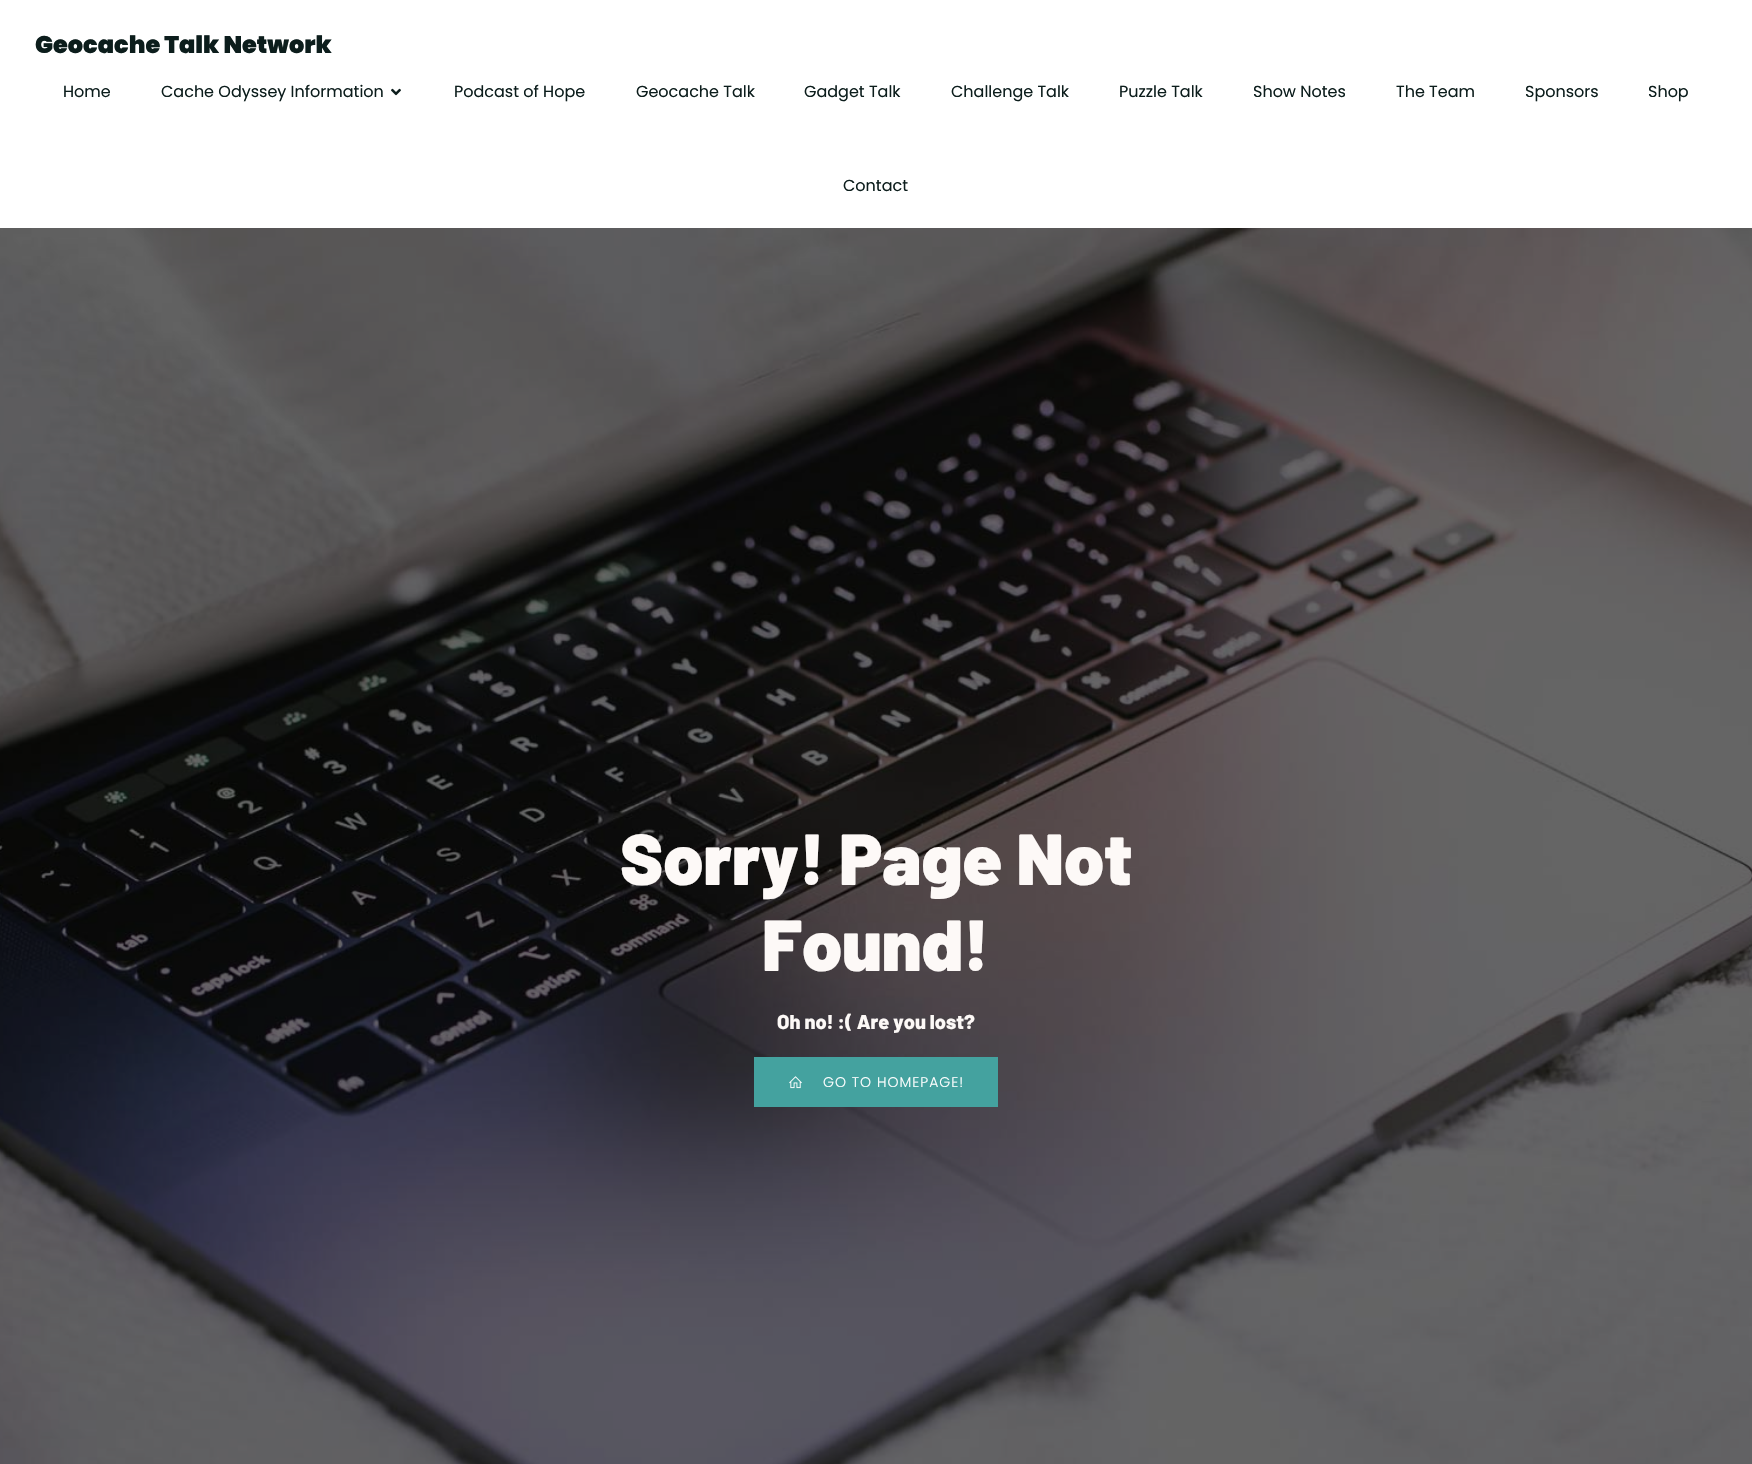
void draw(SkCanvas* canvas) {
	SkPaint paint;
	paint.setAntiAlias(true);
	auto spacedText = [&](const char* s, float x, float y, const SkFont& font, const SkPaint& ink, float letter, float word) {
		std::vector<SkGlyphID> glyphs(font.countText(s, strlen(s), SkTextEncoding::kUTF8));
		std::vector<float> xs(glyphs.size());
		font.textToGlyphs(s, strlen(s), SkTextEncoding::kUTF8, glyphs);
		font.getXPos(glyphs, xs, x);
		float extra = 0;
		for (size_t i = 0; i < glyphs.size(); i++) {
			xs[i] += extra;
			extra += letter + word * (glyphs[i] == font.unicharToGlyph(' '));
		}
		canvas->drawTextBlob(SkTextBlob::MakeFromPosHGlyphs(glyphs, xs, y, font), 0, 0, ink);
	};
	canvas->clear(0xffffffff);
	SkFont f1(fontMgr->matchFamilyStyle("Poppins", SkFontStyle(900, SkFontStyle::kNormal_Width, SkFontStyle::kUpright_Slant)), 24);
	f1.setSubpixel(true);
	paint.setColor(0xff0c1d1c);
	canvas->drawString("Geocache Talk Network", 35, 53, f1, paint);
	SkFont f2(fontMgr->matchFamilyStyle("Poppins", SkFontStyle::Normal()), 16);
	f2.setSubpixel(true);
	canvas->drawString("Home", 63, 97, f2, paint);
	canvas->drawString("Cache Odyssey Information", 161, 97, f2, paint);
	canvas->drawImageRect(SkImages::DeferredFromEncodedData(SkData::MakeFromFileName("img1.png")), SkRect::MakeXYWH(391, 88, 10, 8), SkSamplingOptions());
	canvas->drawString("Podcast of Hope", 454, 97, f2, paint);
	canvas->drawString("Geocache Talk", 636, 97, f2, paint);
	canvas->drawString("Gadget Talk", 804, 97, f2, paint);
	canvas->drawString("Challenge Talk", 951, 97, f2, paint);
	canvas->drawString("Puzzle Talk", 1119, 97, f2, paint);
	canvas->drawString("Show Notes", 1253, 97, f2, paint);
	canvas->drawString("The Team", 1396, 97, f2, paint);
	canvas->drawString("Sponsors", 1525, 97, f2, paint);
	canvas->drawString("Shop", 1648, 97, f2, paint);
	canvas->drawString("Contact", 843, 191, f2, paint);
	canvas->drawImageRect(SkImages::DeferredFromEncodedData(SkData::MakeFromFileName("img2.png")), SkRect::MakeXYWH(0, 228, 1752, 1236), SkSamplingOptions());
	SkFont f3(fontMgr->matchFamilyStyle("Barlow", SkFontStyle(900, SkFontStyle::kNormal_Width, SkFontStyle::kUpright_Slant)), 72);
	f3.setSubpixel(true);
	paint.setColor(0xfffdf9f7);
	canvas->drawString("Sorry! Page Not", 620, 885, f3, paint);
	canvas->drawString("Found!", 762, 971, f3, paint);
	SkFont f4(fontMgr->matchFamilyStyle("Barlow", SkFontStyle(800, SkFontStyle::kNormal_Width, SkFontStyle::kUpright_Slant)), 20);
	f4.setSubpixel(true);
	canvas->drawString("Oh no! :( Are you lost?", 777, 1029, f4, paint);
	paint.setColor(0xff44a29f);
	canvas->drawRect(SkRect::MakeXYWH(754, 1057, 244, 50), paint);
	canvas->drawImageRect(SkImages::DeferredFromEncodedData(SkData::MakeFromFileName("img3.png")), SkRect::MakeXYWH(789, 1076, 13, 13), SkSamplingOptions());
	SkFont f5(fontMgr->matchFamilyStyle("Poppins", SkFontStyle(300, SkFontStyle::kNormal_Width, SkFontStyle::kUpright_Slant)), 14);
	f5.setSubpixel(true);
	paint.setColor(0xffffffff);
	spacedText("GO TO HOMEPAGE!", 823, 1087, f5, paint, 1, 0);
}
